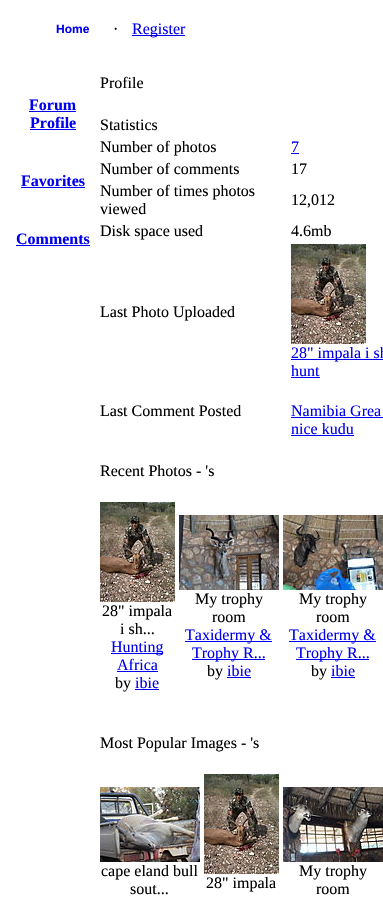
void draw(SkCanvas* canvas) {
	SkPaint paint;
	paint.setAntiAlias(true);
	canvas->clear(0xffffffff);
	SkFont f1(fontMgr->matchFamilyStyle("Liberation Sans", SkFontStyle::Bold()), 12);
	f1.setSubpixel(true);
	paint.setColor(0xff0000ee);
	canvas->drawString("Home", 56, 33, f1, paint);
	SkFont f2(fontMgr->matchFamilyStyle("Liberation Serif", SkFontStyle::Normal()), 16);
	f2.setSubpixel(true);
	paint.setColor(0xff000000);
	canvas->drawString("·", 113, 34, f2, paint);
	paint.setColor(0xff0000ee);
	canvas->drawRect(SkRect::MakeXYWH(132, 35, 53, 1), paint);
	canvas->drawString("Register", 132, 34, f2, paint);
	SkFont f3(fontMgr->matchFamilyStyle("Liberation Serif", SkFontStyle::Bold()), 16);
	f3.setSubpixel(true);
	canvas->drawString("Forum", 29, 110, f3, paint);
	canvas->drawRect(SkRect::MakeXYWH(29, 111, 47, 1), paint);
	canvas->drawString("Profile", 30, 128, f3, paint);
	canvas->drawRect(SkRect::MakeXYWH(30, 129, 46, 1), paint);
	canvas->drawString("Favorites", 21, 186, f3, paint);
	canvas->drawRect(SkRect::MakeXYWH(21, 187, 64, 1), paint);
	canvas->drawString("Comments", 16, 244, f3, paint);
	canvas->drawRect(SkRect::MakeXYWH(16, 245, 74, 1), paint);
	paint.setColor(0xff000000);
	canvas->drawString("Profile", 100, 88, f2, paint);
	canvas->drawString("Statistics", 100, 130, f2, paint);
	canvas->drawString("Number of photos", 100, 152, f2, paint);
	paint.setColor(0xff0000ee);
	canvas->drawString("7", 291, 152, f2, paint);
	canvas->drawRect(SkRect::MakeXYWH(291, 153, 8, 1), paint);
	paint.setColor(0xff000000);
	canvas->drawString("Number of comments", 100, 174, f2, paint);
	canvas->drawString("17", 291, 174, f2, paint);
	canvas->drawString("Number of times photos", 100, 196, f2, paint);
	canvas->drawString("viewed", 100, 214, f2, paint);
	canvas->drawString("12,012", 291, 205, f2, paint);
	canvas->drawString("Disk space used", 100, 236, f2, paint);
	canvas->drawString("4.6mb", 291, 236, f2, paint);
	canvas->drawString("Last Photo Uploaded", 100, 317, f2, paint);
	canvas->drawImageRect(SkImages::DeferredFromEncodedData(SkData::MakeFromFileName("img1.png")), SkRect::MakeXYWH(291, 244, 75, 100), SkSamplingOptions());
	paint.setColor(0xff0000ee);
	canvas->drawRect(SkRect::MakeXYWH(291, 359, 92, 1), paint);
	canvas->drawString("28\" impala i sh", 291, 358, f2, paint);
	canvas->drawString("hunt", 291, 376, f2, paint);
	canvas->drawRect(SkRect::MakeXYWH(291, 377, 29, 1), paint);
	paint.setColor(0xff000000);
	canvas->drawString("Last Comment Posted", 100, 416, f2, paint);
	paint.setColor(0xff0000ee);
	canvas->drawString("Namibia Grea", 291, 416, f2, paint);
	canvas->drawRect(SkRect::MakeXYWH(291, 417, 92, 1), paint);
	canvas->drawString("nice kudu", 291, 434, f2, paint);
	canvas->drawRect(SkRect::MakeXYWH(291, 435, 63, 1), paint);
	paint.setColor(0xff000000);
	canvas->drawString("Recent Photos - 's", 100, 476, f2, paint);
	canvas->drawImageRect(SkImages::DeferredFromEncodedData(SkData::MakeFromFileName("img1.png")), SkRect::MakeXYWH(100, 502, 75, 100), SkSamplingOptions());
	canvas->drawString("28\" impala", 102, 616, f2, paint);
	canvas->drawString("i sh...", 120, 634, f2, paint);
	paint.setColor(0xff0000ee);
	canvas->drawRect(SkRect::MakeXYWH(111, 653, 52, 1), paint);
	canvas->drawString("Hunting", 111, 652, f2, paint);
	canvas->drawString("Africa", 117, 670, f2, paint);
	canvas->drawRect(SkRect::MakeXYWH(117, 671, 41, 1), paint);
	paint.setColor(0xff000000);
	canvas->drawString("by", 115, 688, f2, paint);
	paint.setColor(0xff0000ee);
	canvas->drawRect(SkRect::MakeXYWH(135, 689, 24, 1), paint);
	canvas->drawString("ibie", 135, 688, f2, paint);
	canvas->drawImageRect(SkImages::DeferredFromEncodedData(SkData::MakeFromFileName("img2.png")), SkRect::MakeXYWH(179, 515, 100, 75), SkSamplingOptions());
	paint.setColor(0xff000000);
	canvas->drawString("My trophy", 195, 604, f2, paint);
	canvas->drawString("room", 212, 622, f2, paint);
	paint.setColor(0xff0000ee);
	canvas->drawRect(SkRect::MakeXYWH(185, 641, 87, 1), paint);
	canvas->drawString("Taxidermy &", 185, 640, f2, paint);
	canvas->drawRect(SkRect::MakeXYWH(192, 659, 73, 1), paint);
	canvas->drawString("Trophy R...", 192, 658, f2, paint);
	paint.setColor(0xff000000);
	canvas->drawString("by", 207, 676, f2, paint);
	paint.setColor(0xff0000ee);
	canvas->drawString("ibie", 227, 676, f2, paint);
	canvas->drawRect(SkRect::MakeXYWH(227, 677, 24, 1), paint);
	canvas->drawImageRect(SkImages::DeferredFromEncodedData(SkData::MakeFromFileName("img3.png")), SkRect::MakeXYWH(283, 515, 100, 75), SkSamplingOptions());
	paint.setColor(0xff000000);
	canvas->drawString("My trophy", 299, 604, f2, paint);
	canvas->drawString("room", 316, 622, f2, paint);
	paint.setColor(0xff0000ee);
	canvas->drawRect(SkRect::MakeXYWH(289, 641, 87, 1), paint);
	canvas->drawString("Taxidermy &", 289, 640, f2, paint);
	canvas->drawRect(SkRect::MakeXYWH(296, 659, 73, 1), paint);
	canvas->drawString("Trophy R...", 296, 658, f2, paint);
	paint.setColor(0xff000000);
	canvas->drawString("by", 311, 676, f2, paint);
	paint.setColor(0xff0000ee);
	canvas->drawString("ibie", 331, 676, f2, paint);
	canvas->drawRect(SkRect::MakeXYWH(331, 677, 24, 1), paint);
	paint.setColor(0xff000000);
	canvas->drawString("Most Popular Images - 's", 100, 748, f2, paint);
	canvas->drawImageRect(SkImages::DeferredFromEncodedData(SkData::MakeFromFileName("img4.png")), SkRect::MakeXYWH(100, 787, 100, 75), SkSamplingOptions());
	canvas->drawString("cape eland bull", 101, 876, f2, paint);
	canvas->drawString("sout...", 130, 894, f2, paint);
	canvas->drawImageRect(SkImages::DeferredFromEncodedData(SkData::MakeFromFileName("img1.png")), SkRect::MakeXYWH(204, 774, 75, 100), SkSamplingOptions());
	canvas->drawString("28\" impala", 206, 888, f2, paint);
	canvas->drawImageRect(SkImages::DeferredFromEncodedData(SkData::MakeFromFileName("img5.png")), SkRect::MakeXYWH(283, 787, 100, 75), SkSamplingOptions());
	canvas->drawString("My trophy", 299, 876, f2, paint);
	canvas->drawString("room", 316, 894, f2, paint);
}
